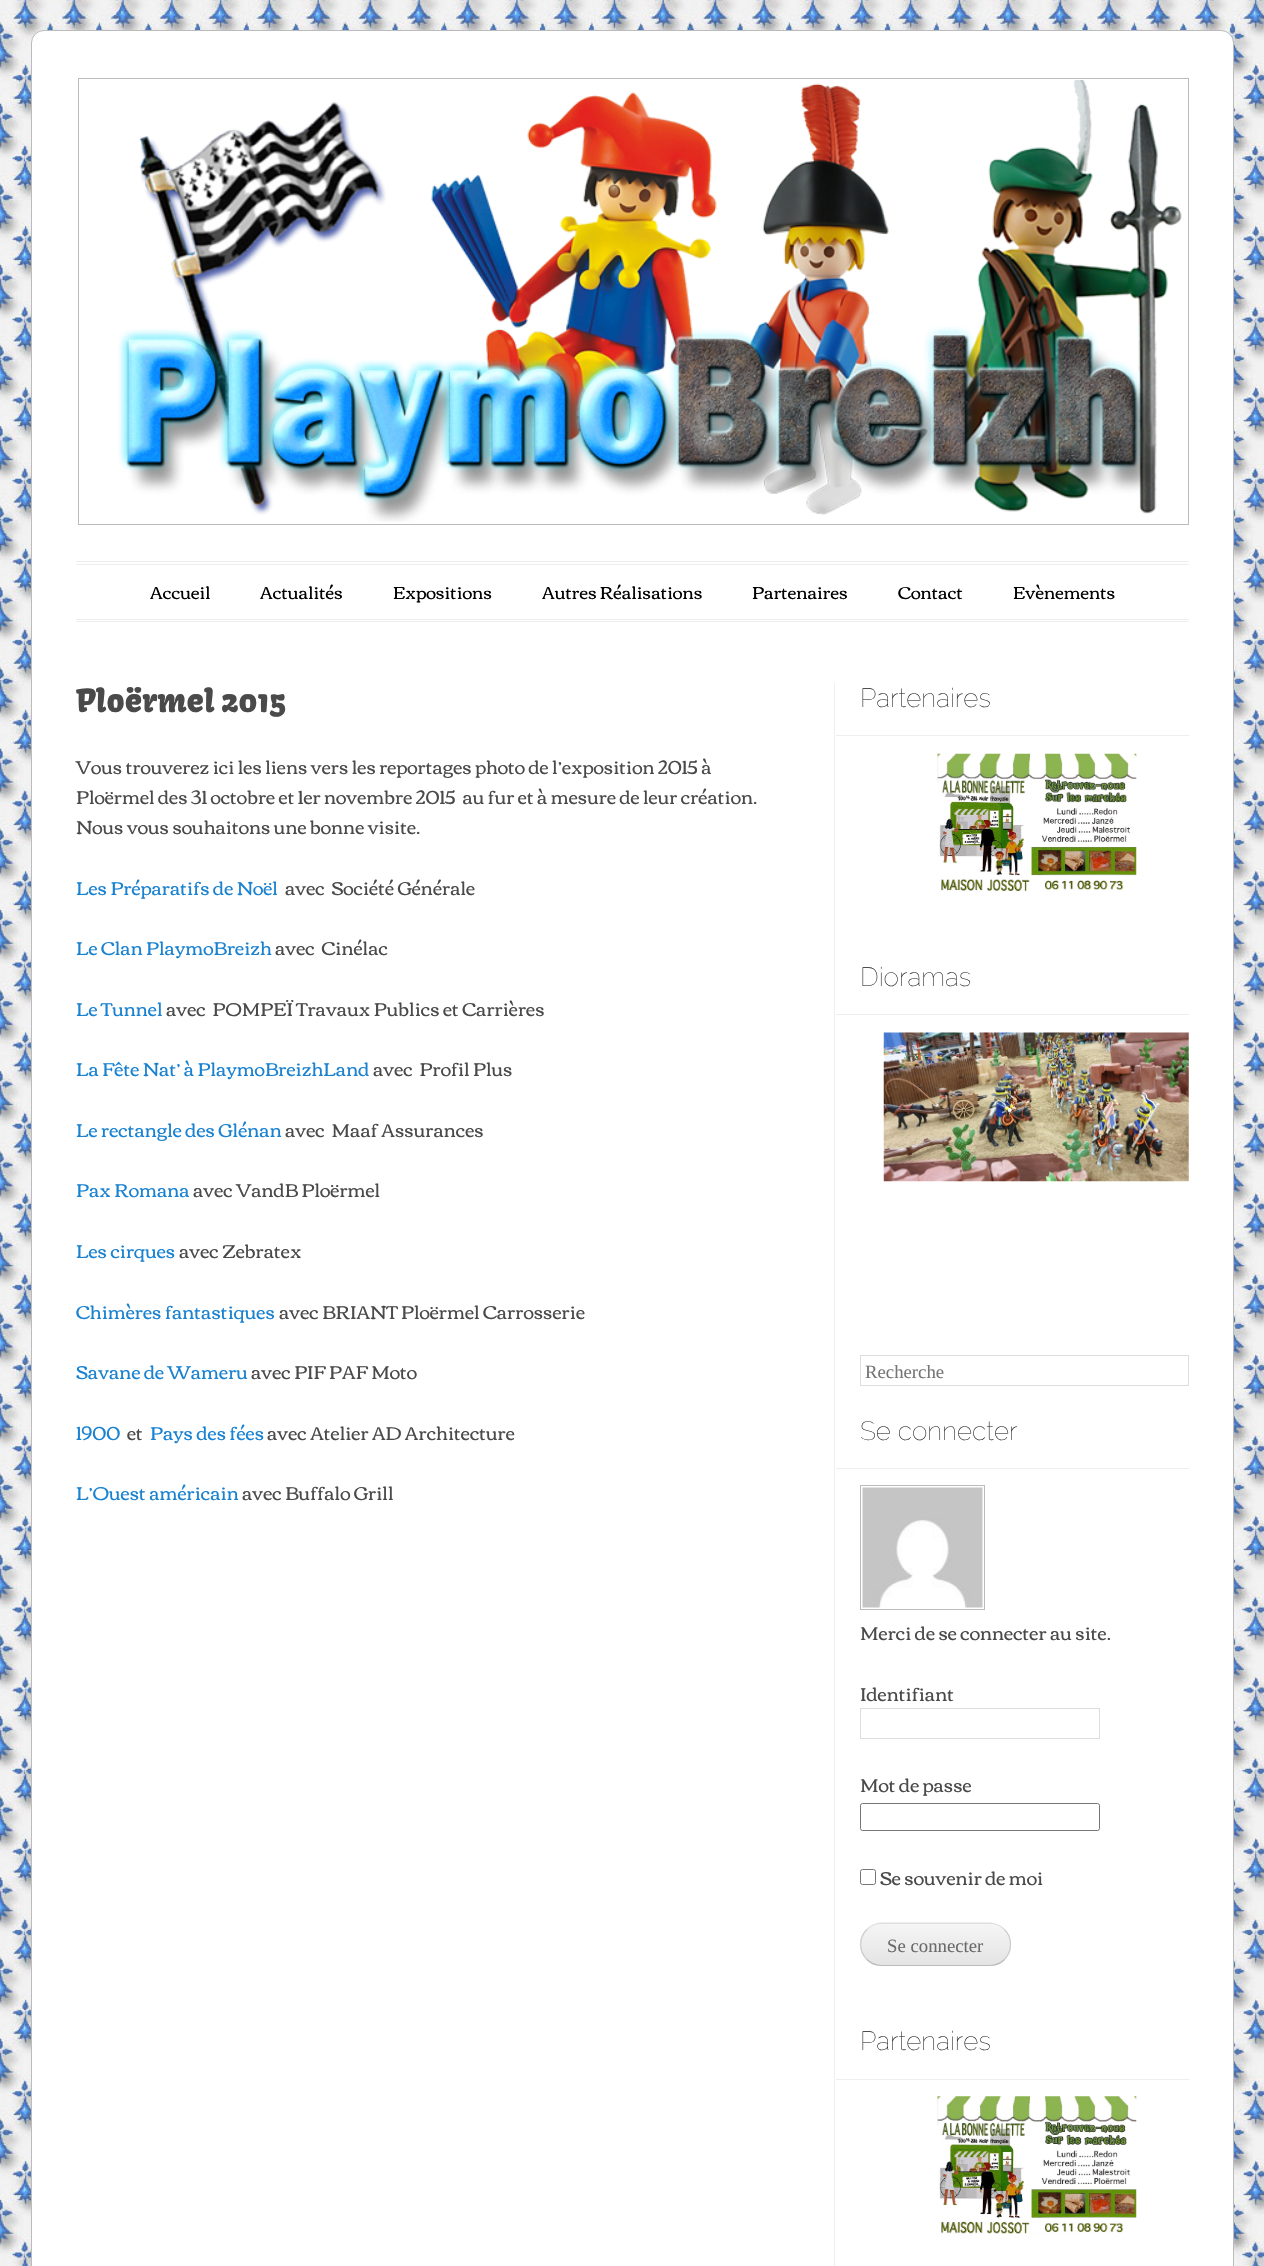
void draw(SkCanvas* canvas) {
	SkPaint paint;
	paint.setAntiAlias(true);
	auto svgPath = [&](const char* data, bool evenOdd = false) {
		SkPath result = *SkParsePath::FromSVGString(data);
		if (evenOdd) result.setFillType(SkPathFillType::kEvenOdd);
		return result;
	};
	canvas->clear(0xffffffff);
	canvas->drawImageRect(SkImages::DeferredFromEncodedData(SkData::MakeFromFileName("img1.png")), SkRect::MakeXYWH(0, 0, 1264, 2266), SkSamplingOptions());
	paint.setColor(0xffffffff);
	canvas->drawRoundRect(SkRect::MakeXYWH(31.5, 30.5, 1202, 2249), 12.5, 12.5, paint);
	paint.setStroke(true);
	paint.setStrokeWidth(1);
	paint.setColor(0xffbbbbbb);
	canvas->drawRoundRect(SkRect::MakeXYWH(31.5, 30.5, 1202, 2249), 12.5, 12.5, paint);
	canvas->drawRect(SkRect::MakeXYWH(78.5, 78.5, 1110, 446), paint);
	canvas->drawImageRect(SkImages::DeferredFromEncodedData(SkData::MakeFromFileName("img2.png")), SkRect::MakeXYWH(118, 80, 1064, 442), SkSamplingOptions());
	paint.setStroke(false);
	paint.setColor(0xffeeeeee);
	canvas->drawRect(SkRect::MakeXYWH(76, 561, 1113, 1), paint);
	canvas->drawRect(SkRect::MakeXYWH(76, 564, 1113, 1), paint);
	canvas->drawRect(SkRect::MakeXYWH(76, 619, 1113, 1), paint);
	canvas->drawRect(SkRect::MakeXYWH(76, 621, 1113, 1), paint);
	SkFont f1(fontMgr->matchFamilyStyle("Corben", SkFontStyle::Normal()), 17.5);
	f1.setSubpixel(true);
	paint.setColor(0xff000000);
	canvas->drawString("Accueil", 150, 599, f1, paint);
	canvas->drawString("Actualités", 260, 599, f1, paint);
	canvas->drawString("Expositions", 393, 599, f1, paint);
	canvas->drawString("Autres Réalisations", 542, 599, f1, paint);
	canvas->drawString("Partenaires", 752, 599, f1, paint);
	canvas->drawString("Contact", 898, 599, f1, paint);
	canvas->drawString("Evènements", 1013, 599, f1, paint);
	SkFont f2(fontMgr->matchFamilyStyle("Kavoon", SkFontStyle::Normal()), 31.25);
	f2.setSubpixel(true);
	paint.setColor(0xff4a4a4a);
	canvas->drawString("Ploërmel 2015", 76, 712, f2, paint);
	SkFont f3(fontMgr->matchFamilyStyle("Corben", SkFontStyle::Normal()), 18.75);
	f3.setSubpixel(true);
	canvas->drawString("Vous trouverez ici les liens vers les reportages photo de l’exposition 2015 à", 76, 774, f3, paint);
	canvas->drawString("Ploërmel des 31 octobre et 1er novembre 2015  au fur et à mesure de leur création.", 76, 804, f3, paint);
	canvas->drawString("Nous vous souhaitons une bonne visite.", 76, 834, f3, paint);
	paint.setColor(0xff1982d1);
	canvas->drawString("Les Préparatifs de Noël", 76, 895, f3, paint);
	paint.setColor(0xff4a4a4a);
	canvas->drawString("avec  Société Générale", 285, 895, f3, paint);
	paint.setColor(0xff1982d1);
	canvas->drawString("Le Clan PlaymoBreizh", 76, 955, f3, paint);
	paint.setColor(0xff4a4a4a);
	canvas->drawString("avec  Cinélac", 275, 955, f3, paint);
	paint.setColor(0xff1982d1);
	canvas->drawString("Le Tunnel", 76, 1016, f3, paint);
	paint.setColor(0xff4a4a4a);
	canvas->drawString("avec  POMPEÏ Travaux Publics et Carrières", 166, 1016, f3, paint);
	paint.setColor(0xff1982d1);
	canvas->drawString("La Fête Nat’ à PlaymoBreizhLand", 76, 1076, f3, paint);
	paint.setColor(0xff4a4a4a);
	canvas->drawString("avec  Profil Plus", 373, 1076, f3, paint);
	paint.setColor(0xff1982d1);
	canvas->drawString("Le rectangle des Glénan", 76, 1137, f3, paint);
	paint.setColor(0xff4a4a4a);
	canvas->drawString("avec  Maaf Assurances", 285, 1137, f3, paint);
	paint.setColor(0xff1982d1);
	canvas->drawString("Pax Romana", 76, 1197, f3, paint);
	paint.setColor(0xff4a4a4a);
	canvas->drawString("avec VandB Ploërmel", 193, 1197, f3, paint);
	paint.setColor(0xff1982d1);
	canvas->drawString("Les cirques", 76, 1258, f3, paint);
	paint.setColor(0xff4a4a4a);
	canvas->drawString("avec Zebratex", 179, 1258, f3, paint);
	paint.setColor(0xff1982d1);
	canvas->drawString("Chimères fantastiques", 76, 1319, f3, paint);
	paint.setColor(0xff4a4a4a);
	canvas->drawString("avec BRIANT Ploërmel Carrosserie", 279, 1319, f3, paint);
	paint.setColor(0xff1982d1);
	canvas->drawString("Savane de Wameru", 76, 1379, f3, paint);
	paint.setColor(0xff4a4a4a);
	canvas->drawString("avec PIF PAF Moto", 251, 1379, f3, paint);
	paint.setColor(0xff1982d1);
	canvas->drawString("1900", 76, 1440, f3, paint);
	paint.setColor(0xff4a4a4a);
	canvas->drawString("et", 127, 1440, f3, paint);
	paint.setColor(0xff1982d1);
	canvas->drawString("Pays des fées", 150, 1440, f3, paint);
	paint.setColor(0xff4a4a4a);
	canvas->drawString("avec Atelier AD Architecture", 267, 1440, f3, paint);
	paint.setColor(0xff1982d1);
	canvas->drawString("L’Ouest américain", 76, 1500, f3, paint);
	paint.setColor(0xff4a4a4a);
	canvas->drawString("avec Buffalo Grill", 242, 1500, f3, paint);
	paint.setColor(0xffeeeeee);
	canvas->drawRect(SkRect::MakeXYWH(834, 683, 1, 1583), paint);
	canvas->drawRect(SkRect::MakeXYWH(836, 735, 353, 1), paint);
	SkFont f4(fontMgr->matchFamilyStyle("Raleway", SkFontStyle(100, SkFontStyle::kNormal_Width, SkFontStyle::kUpright_Slant)), 26.25);
	f4.setSubpixel(true);
	paint.setColor(0xff2a2a2a);
	canvas->drawString("Partenaires", 860, 707, f4, paint);
	canvas->drawImageRect(SkImages::DeferredFromEncodedData(SkData::MakeFromFileName("img3.png")), SkRect::MakeXYWH(937, 753, 200, 139), SkSamplingOptions());
	paint.setColor(0xffeeeeee);
	canvas->drawRect(SkRect::MakeXYWH(836, 1014, 353, 1), paint);
	paint.setColor(0xff2a2a2a);
	canvas->drawString("Dioramas", 860, 986, f4, paint);
	canvas->drawImageRect(SkImages::DeferredFromEncodedData(SkData::MakeFromFileName("img4.png")), SkRect::MakeXYWH(883, 1032, 306, 150), SkSamplingOptions());
	paint.setStroke(true);
	paint.setColor(0xffdddddd);
	canvas->drawRect(SkRect::MakeXYWH(860.5, 1355.5, 328, 30), paint);
	SkFont f5(fontMgr->matchFamilyStyle("Liberation Serif", SkFontStyle::Normal()), 18.75);
	f5.setSubpixel(true);
	paint.setStroke(false);
	paint.setColor(0xff757575);
	canvas->drawString("Recherche", 865, 1378, f5, paint);
	paint.setColor(0xffeeeeee);
	canvas->drawRect(SkRect::MakeXYWH(836, 1468, 353, 1), paint);
	paint.setColor(0xff2a2a2a);
	canvas->drawString("Se connecter", 860, 1440, f4, paint);
	paint.setStroke(true);
	paint.setColor(0xffbbbbbb);
	canvas->drawRect(SkRect::MakeXYWH(860.5, 1485.5, 124, 124), paint);
	canvas->drawImageRect(SkImages::DeferredFromEncodedData(SkData::MakeFromFileName("img5.png")), SkRect::MakeXYWH(862, 1487, 121, 121), SkSamplingOptions());
	paint.setStroke(false);
	paint.setColor(0xff4a4a4a);
	canvas->drawString("Merci de se connecter au site.", 860, 1640, f3, paint);
	canvas->drawString("Identifiant", 860, 1701, f3, paint);
	paint.setStroke(true);
	paint.setColor(0xffdddddd);
	canvas->drawRect(SkRect::MakeXYWH(860.5, 1708.5, 239, 30), paint);
	paint.setStroke(false);
	paint.setColor(0xff4a4a4a);
	canvas->drawString("Mot de passe", 860, 1792, f3, paint);
	paint.setStroke(true);
	paint.setColor(0xff767676);
	canvas->drawRoundRect(SkRect::MakeXYWH(860.5, 1803.5, 239, 27), 2, 2, paint);
	canvas->drawRoundRect(SkRect::MakeXYWH(860.5, 1869.5, 15, 15), 2, 2, paint);
	paint.setStroke(false);
	paint.setColor(0xff4a4a4a);
	canvas->drawString("Se souvenir de moi", 880, 1885, f3, paint);
	canvas->save();
	canvas->clipPath(svgPath("M881.5 1923H989.5C1001.5 1923 1011 1932.5 1011 1944.5C1011 1956.5 1001.5 1966 989.5 1966H881.5C869.5 1966 860 1956.5 860 1944.5C860 1932.5 869.5 1923 881.5 1923Z"), true);
	{
		const SkColor colors[] = {0xfff5f5f5, 0xffe4e4e4};
		const float stops[] = {0, 1};
		const SkPoint ends[] = {{936, 1883}, {936, 1924}};
		paint.setShader(SkGradientShader::MakeLinear(ends, colors, stops, 2, SkTileMode::kClamp));
		paint.setAlpha(255);
	}
	canvas->drawRect(SkRect::MakeXYWH(875, 1923, 121, 1), paint);
	{
		const SkColor colors[] = {0xfff5f5f5, 0xffe4e4e4};
		const float stops[] = {0, 1};
		const SkPoint ends[] = {{936, 1924}, {936, 1965}};
		paint.setShader(SkGradientShader::MakeLinear(ends, colors, stops, 2, SkTileMode::kClamp));
		paint.setAlpha(255);
	}
	canvas->drawRect(SkRect::MakeXYWH(860, 1924, 151, 41), paint);
	canvas->restore();
	paint.setStroke(true);
	paint.setStrokeWidth(1.2);
	paint.setShader(nullptr);
	paint.setColor(0xffdddddd);
	canvas->drawPath(svgPath("M867 1929.5C871 1925.5 876 1923 882 1923H989.5C995 1923 1000.5 1925.5 1004.5 1929.5"), paint);
	paint.setColor(0xffcccccc);
	canvas->drawPath(svgPath("M1004.5 1929.5C1012.5 1937.5 1012.5 1951 1004.5 1959.5"), paint);
	paint.setColor(0xffbbbbbb);
	canvas->drawPath(svgPath("M1004.5 1959.5C1000.5 1963.5 995 1965.5 989.5 1965.5H882C876 1965.5 871 1963.5 867 1959.5"), paint);
	paint.setColor(0xffcccccc);
	canvas->drawPath(svgPath("M867 1959.5C858.5 1951 858.5 1937.5 867 1929.5"), paint);
	paint.setStroke(false);
	paint.setColor(0xff6a6a6a);
	canvas->drawString("Se connecter", 887, 1952, f5, paint);
	paint.setColor(0xffeeeeee);
	canvas->drawRect(SkRect::MakeXYWH(836, 2079, 353, 1), paint);
	paint.setColor(0xff2a2a2a);
	canvas->drawString("Partenaires", 860, 2050, f4, paint);
	canvas->drawImageRect(SkImages::DeferredFromEncodedData(SkData::MakeFromFileName("img6.png")), SkRect::MakeXYWH(937, 2096, 200, 138), SkSamplingOptions());
}
